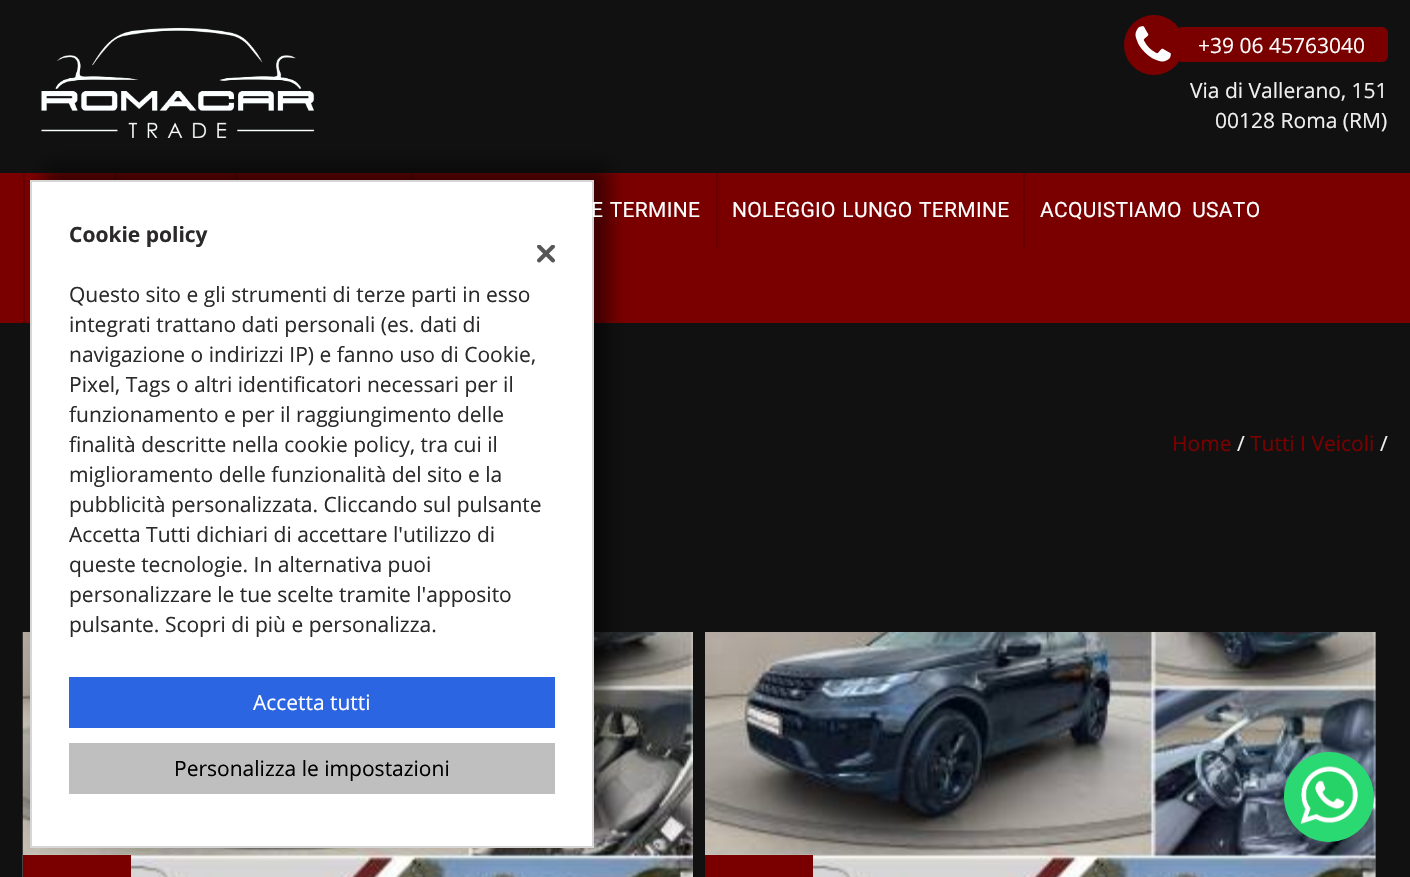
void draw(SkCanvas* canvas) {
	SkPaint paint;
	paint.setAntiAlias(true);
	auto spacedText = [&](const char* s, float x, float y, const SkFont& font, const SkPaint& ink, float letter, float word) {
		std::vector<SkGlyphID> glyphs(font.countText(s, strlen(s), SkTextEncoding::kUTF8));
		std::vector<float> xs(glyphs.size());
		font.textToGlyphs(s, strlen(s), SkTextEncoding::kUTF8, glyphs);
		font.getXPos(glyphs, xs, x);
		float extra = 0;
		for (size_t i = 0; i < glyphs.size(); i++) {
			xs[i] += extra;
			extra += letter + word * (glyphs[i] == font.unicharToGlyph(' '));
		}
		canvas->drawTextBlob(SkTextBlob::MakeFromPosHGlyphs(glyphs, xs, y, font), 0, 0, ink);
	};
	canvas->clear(0xff111111);
	canvas->drawImageRect(SkImages::DeferredFromEncodedData(SkData::MakeFromFileName("img2.png")), SkRect::MakeXYWH(41, 27, 274, 111), SkSamplingOptions());
	paint.setColor(0xff7a0000);
	canvas->drawRect(SkRect::MakeXYWH(0, 173, 1410, 150), paint);
	paint.setColor(0xff660000);
	canvas->drawRect(SkRect::MakeXYWH(23, 173, 2, 150), paint);
	canvas->drawRect(SkRect::MakeXYWH(114, 173, 2, 7), paint);
	canvas->drawRect(SkRect::MakeXYWH(236, 173, 2, 7), paint);
	canvas->drawRect(SkRect::MakeXYWH(411, 173, 2, 7), paint);
	canvas->drawImageRect(SkImages::DeferredFromEncodedData(SkData::MakeFromFileName("img4.png")), SkRect::MakeXYWH(22, 632, 671, 245), SkSamplingOptions());
	paint.setColor(0xff7a0000);
	canvas->drawRect(SkRect::MakeXYWH(23, 855, 108, 22), paint);
	paint.setColor(0x80000000);
	paint.setMaskFilter(SkMaskFilter::MakeBlur(kNormal_SkBlurStyle, 9));
	canvas->drawRect(SkRect::MakeXYWH(45, 165, 564, 668), paint);
	paint.setMaskFilter(nullptr);
	paint.setColor(0xffffffff);
	canvas->drawRect(SkRect::MakeXYWH(31, 181, 562, 666), paint);
	paint.setStroke(true);
	paint.setStrokeWidth(2);
	paint.setColor(0xffd6d6d6);
	canvas->drawRect(SkRect::MakeXYWH(31, 181, 562, 666), paint);
	SkFont f1(fontMgr->matchFamilyStyle("Open Sans", SkFontStyle::Bold()), 21);
	f1.setSubpixel(true);
	paint.setStroke(false);
	paint.setColor(0xff2b2929);
	canvas->drawString("Cookie policy", 69, 242, f1, paint);
	SkFont f2(fontMgr->matchFamilyStyle("Open Sans", SkFontStyle::Normal()), 21);
	f2.setSubpixel(true);
	canvas->drawString("Questo sito e gli strumenti di terze parti in esso", 69, 302, f2, paint);
	canvas->drawString("integrati trattano dati personali (es. dati di", 69, 332, f2, paint);
	canvas->drawString("navigazione o indirizzi IP) e fanno uso di Cookie,", 69, 362, f2, paint);
	canvas->drawString("Pixel, Tags o altri identificatori necessari per il", 69, 392, f2, paint);
	canvas->drawString("funzionamento e per il raggiungimento delle", 69, 422, f2, paint);
	canvas->drawString("finalità descritte nella cookie policy, tra cui il", 69, 452, f2, paint);
	canvas->drawString("miglioramento delle funzionalità del sito e la", 69, 482, f2, paint);
	canvas->drawString("pubblicità personalizzata. Cliccando sul pulsante", 69, 512, f2, paint);
	canvas->drawString("Accetta Tutti dichiari di accettare l'utilizzo di", 69, 542, f2, paint);
	canvas->drawString("queste tecnologie. In alternativa puoi", 69, 572, f2, paint);
	canvas->drawString("personalizzare le tue scelte tramite l'apposito", 69, 602, f2, paint);
	canvas->drawString("pulsante. Scopri di più e personalizza.", 69, 632, f2, paint);
	canvas->drawImageRect(SkImages::DeferredFromEncodedData(SkData::MakeFromFileName("img1.png")), SkRect::MakeXYWH(537, 245, 18, 18), SkSamplingOptions());
	paint.setColor(0xff2c65e1);
	canvas->drawRect(SkRect::MakeXYWH(69, 677, 486, 51), paint);
	paint.setColor(0xffffffff);
	canvas->drawString("Accetta tutti", 253, 710, f2, paint);
	paint.setColor(0xffbfbfbf);
	canvas->drawRect(SkRect::MakeXYWH(69, 743, 486, 51), paint);
	paint.setColor(0xff000000);
	canvas->drawString("Personalizza le impostazioni", 174, 776, f2, paint);
	paint.setColor(0xff7a0000);
	canvas->drawCircle(1154, 45, 30, paint);
	canvas->drawImageRect(SkImages::DeferredFromEncodedData(SkData::MakeFromFileName("img3.png")), SkRect::MakeXYWH(1135, 26, 36, 36), SkSamplingOptions());
	canvas->drawRoundRect(SkRect::MakeXYWH(1176, 27, 212, 35), 6, 6, paint);
	paint.setColor(0xffffffff);
	canvas->drawString("+39 06 45763040", 1198, 53, f2, paint);
	paint.setColor(0xfff0f0f0);
	canvas->drawString("Via di Vallerano, 151", 1190, 98, f2, paint);
	canvas->drawString("00128 Roma (RM)", 1215, 128, f2, paint);
	SkFont f3(fontMgr->matchFamilyStyle("Roboto", SkFontStyle::Normal()), 21);
	f3.setSubpixel(true);
	paint.setColor(0xffffffff);
	spacedText("E TERMINE", 591, 217, f3, paint, 0.3, 1);
	paint.setColor(0xff660000);
	canvas->drawRect(SkRect::MakeXYWH(716, 173, 2, 75), paint);
	paint.setColor(0xffffffff);
	spacedText("NOLEGGIO LUNGO TERMINE", 732, 217, f3, paint, 0.3, 1);
	paint.setColor(0xff660000);
	canvas->drawRect(SkRect::MakeXYWH(1023, 173, 2, 75), paint);
	paint.setColor(0xffffffff);
	spacedText("ACQUISTIAMO USATO", 1040, 217, f3, paint, 0.3, 5);
	paint.setColor(0xff7a0000);
	canvas->drawString("Home", 1172, 451, f2, paint);
	paint.setColor(0xfff0f0f0);
	canvas->drawString("/", 1237, 451, f2, paint);
	paint.setColor(0xff7a0000);
	canvas->drawString("Tutti I Veicoli", 1250, 451, f2, paint);
	paint.setColor(0xfff0f0f0);
	canvas->drawString("/", 1380, 451, f2, paint);
	paint.setColor(0xff404040);
	canvas->drawRect(SkRect::MakeXYWH(1375, 632, 1, 245), paint);
	canvas->drawImageRect(SkImages::DeferredFromEncodedData(SkData::MakeFromFileName("img5.png")), SkRect::MakeXYWH(705, 632, 671, 245), SkSamplingOptions());
	paint.setColor(0xff7a0000);
	canvas->drawRect(SkRect::MakeXYWH(705, 855, 108, 22), paint);
	paint.setColor(0xff2ad971);
	canvas->drawCircle(1329, 797, 45, paint);
	canvas->drawImageRect(SkImages::DeferredFromEncodedData(SkData::MakeFromFileName("img6.png")), SkRect::MakeXYWH(1300, 766, 58, 58), SkSamplingOptions());
}
